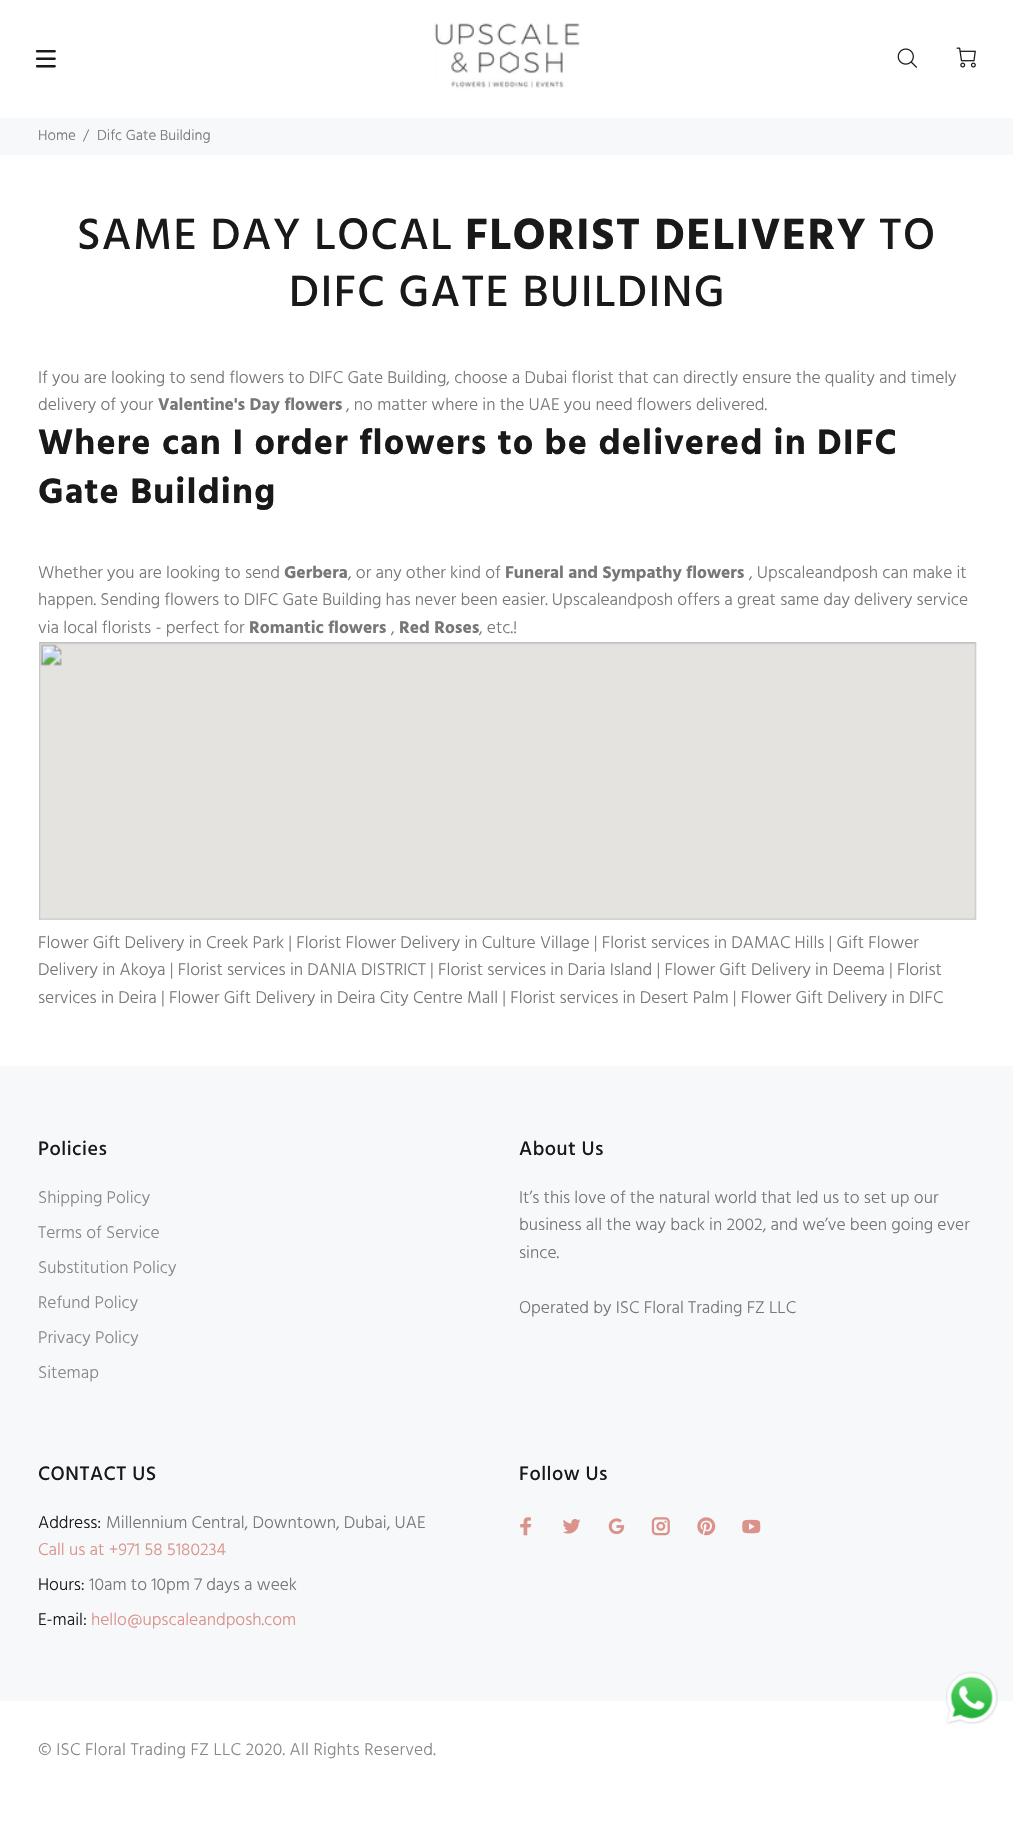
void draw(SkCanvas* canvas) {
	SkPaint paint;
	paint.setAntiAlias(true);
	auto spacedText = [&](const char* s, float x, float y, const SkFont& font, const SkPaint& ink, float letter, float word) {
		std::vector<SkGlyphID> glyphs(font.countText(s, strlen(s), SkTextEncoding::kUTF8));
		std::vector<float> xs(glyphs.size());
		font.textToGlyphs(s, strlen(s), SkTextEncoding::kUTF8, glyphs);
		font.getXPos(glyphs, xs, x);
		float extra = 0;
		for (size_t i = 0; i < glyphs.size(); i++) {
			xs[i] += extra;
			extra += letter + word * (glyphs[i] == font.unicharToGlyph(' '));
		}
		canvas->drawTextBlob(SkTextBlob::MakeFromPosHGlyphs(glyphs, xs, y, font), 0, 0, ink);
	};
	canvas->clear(0xffffffff);
	canvas->drawImageRect(SkImages::DeferredFromEncodedData(SkData::MakeFromFileName("img1.png")), SkRect::MakeXYWH(35, 50, 21, 18), SkSamplingOptions());
	canvas->drawImageRect(SkImages::DeferredFromEncodedData(SkData::MakeFromFileName("img2.png")), SkRect::MakeXYWH(433, 23, 147, 66), SkSamplingOptions());
	canvas->drawImageRect(SkImages::DeferredFromEncodedData(SkData::MakeFromFileName("img3.png")), SkRect::MakeXYWH(897, 48, 20, 20), SkSamplingOptions());
	canvas->drawImageRect(SkImages::DeferredFromEncodedData(SkData::MakeFromFileName("img4.png")), SkRect::MakeXYWH(956, 47, 20, 21), SkSamplingOptions());
	paint.setColor(0xfff7f8fa);
	canvas->drawRect(SkRect::MakeXYWH(0, 118, 1013, 37), paint);
	SkFont f1(fontMgr->matchFamilyStyle("Hind", SkFontStyle(300, SkFontStyle::kNormal_Width, SkFontStyle::kUpright_Slant)), 15);
	f1.setSubpixel(true);
	paint.setColor(0xff777777);
	canvas->drawString("Home", 38, 140, f1, paint);
	canvas->drawString("/", 83, 140, f1, paint);
	canvas->drawString("Difc Gate Building", 97, 140, f1, paint);
	SkFont f2(fontMgr->matchFamilyStyle("Hind", SkFontStyle(500, SkFontStyle::kNormal_Width, SkFontStyle::kUpright_Slant)), 45);
	f2.setSubpixel(true);
	paint.setColor(0xff191919);
	spacedText("SAME DAY LOCAL", 77, 249, f2, paint, 1.4, 0);
	SkFont f3(fontMgr->matchFamilyStyle("Hind", SkFontStyle::Bold()), 45);
	f3.setSubpixel(true);
	spacedText("FLORIST DELIVERY", 465, 249, f3, paint, 1.4, 0);
	spacedText("TO", 879, 249, f2, paint, 1.4, 0);
	spacedText("DIFC GATE BUILDING", 289, 306, f2, paint, 1.4, 0);
	SkFont f4(fontMgr->matchFamilyStyle("Hind", SkFontStyle(300, SkFontStyle::kNormal_Width, SkFontStyle::kUpright_Slant)), 17.5);
	f4.setSubpixel(true);
	paint.setColor(0xff777777);
	canvas->drawString("If you are looking to send flowers to DIFC Gate Building, choose a Dubai florist that can directly ensure the quality and timely", 38, 383, f4, paint);
	canvas->drawString("delivery of your", 38, 410, f4, paint);
	SkFont f5(fontMgr->matchFamilyStyle("Hind", SkFontStyle::Bold()), 17.5);
	f5.setSubpixel(true);
	canvas->drawString("Valentine's Day flowers", 158, 410, f5, paint);
	canvas->drawString(", no matter where in the UAE you need flowers delivered.", 346, 410, f4, paint);
	SkFont f6(fontMgr->matchFamilyStyle("Hind", SkFontStyle::Bold()), 36.25);
	f6.setSubpixel(true);
	paint.setColor(0xff191919);
	spacedText("Where can I order flowers to be delivered in DIFC", 38, 454, f6, paint, 1.1, 0);
	spacedText("Gate Building", 38, 503, f6, paint, 1.1, 0);
	paint.setColor(0xff777777);
	canvas->drawString("Whether you are looking to send", 38, 578, f4, paint);
	canvas->drawString("Gerbera", 284, 578, f5, paint);
	canvas->drawString(", or any other kind of", 348, 578, f4, paint);
	canvas->drawString("Funeral and Sympathy flowers", 505, 578, f5, paint);
	canvas->drawString(", Upscaleandposh can make it", 749, 578, f4, paint);
	canvas->drawString("happen. Sending flowers to DIFC Gate Building has never been easier. Upscaleandposh offers a great same day delivery service", 38, 605, f4, paint);
	canvas->drawString("via local florists - perfect for", 38, 633, f4, paint);
	canvas->drawString("Romantic flowers", 249, 633, f5, paint);
	canvas->drawString(",", 391, 633, f4, paint);
	canvas->drawString("Red Roses", 399, 633, f5, paint);
	canvas->drawString(", etc.!", 479, 633, f4, paint);
	canvas->drawImageRect(SkImages::DeferredFromEncodedData(SkData::MakeFromFileName("img5.png")), SkRect::MakeXYWH(39, 642, 938, 278), SkSamplingOptions());
	canvas->drawString("Flower Gift Delivery in Creek Park | Florist Flower Delivery in Culture Village | Florist services in DAMAC Hills | Gift Flower", 38, 948, f4, paint);
	canvas->drawString("Delivery in Akoya | Florist services in DANIA DISTRICT | Florist services in Daria Island | Flower Gift Delivery in Deema | Florist", 38, 975, f4, paint);
	canvas->drawString("services in Deira | Flower Gift Delivery in Deira City Centre Mall | Florist services in Desert Palm | Flower Gift Delivery in DIFC", 38, 1003, f4, paint);
	paint.setColor(0xfff7f8fa);
	canvas->drawRect(SkRect::MakeXYWH(0, 1066, 1013, 635), paint);
	SkFont f7(fontMgr->matchFamilyStyle("Hind", SkFontStyle(500, SkFontStyle::kNormal_Width, SkFontStyle::kUpright_Slant)), 20);
	f7.setSubpixel(true);
	paint.setColor(0xff191919);
	spacedText("Policies", 38, 1155, f7, paint, 0.5, 0);
	paint.setColor(0xff888888);
	canvas->drawString("Shipping Policy", 38, 1203, f4, paint);
	canvas->drawString("Terms of Service", 38, 1238, f4, paint);
	canvas->drawString("Substitution Policy", 38, 1273, f4, paint);
	canvas->drawString("Refund Policy", 38, 1308, f4, paint);
	canvas->drawString("Privacy Policy", 38, 1343, f4, paint);
	canvas->drawString("Sitemap", 38, 1378, f4, paint);
	paint.setColor(0xff191919);
	spacedText("About Us", 519, 1155, f7, paint, 0.5, 0);
	paint.setColor(0xff777777);
	canvas->drawString("It’s this love of the natural world that led us to set up our", 519, 1203, f4, paint);
	canvas->drawString("business all the way back in 2002, and we’ve been going ever", 519, 1230, f4, paint);
	canvas->drawString("since.", 519, 1258, f4, paint);
	canvas->drawString("Operated by ISC Floral Trading FZ LLC", 519, 1313, f4, paint);
	paint.setColor(0xff191919);
	spacedText("CONTACT US", 38, 1480, f7, paint, 0.5, 0);
	canvas->drawString("Address:", 38, 1528, f4, paint);
	paint.setColor(0xff777777);
	canvas->drawString("Millennium Central, Downtown, Dubai, UAE", 106, 1528, f4, paint);
	paint.setColor(0xffda928a);
	canvas->drawString("Call us at +971 58 5180234", 38, 1555, f4, paint);
	paint.setColor(0xff191919);
	canvas->drawString("Hours:", 38, 1590, f4, paint);
	paint.setColor(0xff777777);
	canvas->drawString("10am to 10pm 7 days a week", 89, 1590, f4, paint);
	paint.setColor(0xff191919);
	canvas->drawString("E-mail:", 38, 1625, f4, paint);
	paint.setColor(0xffda928a);
	canvas->drawString("hello@upscaleandposh.com", 91, 1625, f4, paint);
	paint.setColor(0xff191919);
	spacedText("Follow Us", 519, 1480, f7, paint, 0.5, 0);
	canvas->drawImageRect(SkImages::DeferredFromEncodedData(SkData::MakeFromFileName("img6.png")), SkRect::MakeXYWH(520, 1517, 12, 19), SkSamplingOptions());
	canvas->drawImageRect(SkImages::DeferredFromEncodedData(SkData::MakeFromFileName("img7.png")), SkRect::MakeXYWH(563, 1519, 18, 15), SkSamplingOptions());
	canvas->drawImageRect(SkImages::DeferredFromEncodedData(SkData::MakeFromFileName("img8.png")), SkRect::MakeXYWH(608, 1518, 17, 17), SkSamplingOptions());
	canvas->drawImageRect(SkImages::DeferredFromEncodedData(SkData::MakeFromFileName("img9.png")), SkRect::MakeXYWH(651, 1517, 19, 19), SkSamplingOptions());
	canvas->drawImageRect(SkImages::DeferredFromEncodedData(SkData::MakeFromFileName("img10.png")), SkRect::MakeXYWH(697, 1517, 19, 19), SkSamplingOptions());
	canvas->drawImageRect(SkImages::DeferredFromEncodedData(SkData::MakeFromFileName("img11.png")), SkRect::MakeXYWH(742, 1519, 19, 15), SkSamplingOptions());
	paint.setColor(0xff888888);
	spacedText("© ISC Floral Trading FZ LLC 2020. All Rights Reserved.", 38, 1755, f4, paint, 0.18, 0);
	canvas->drawImageRect(SkImages::DeferredFromEncodedData(SkData::MakeFromFileName("img12.png")), SkRect::MakeXYWH(945, 1671, 53, 54), SkSamplingOptions());
}
